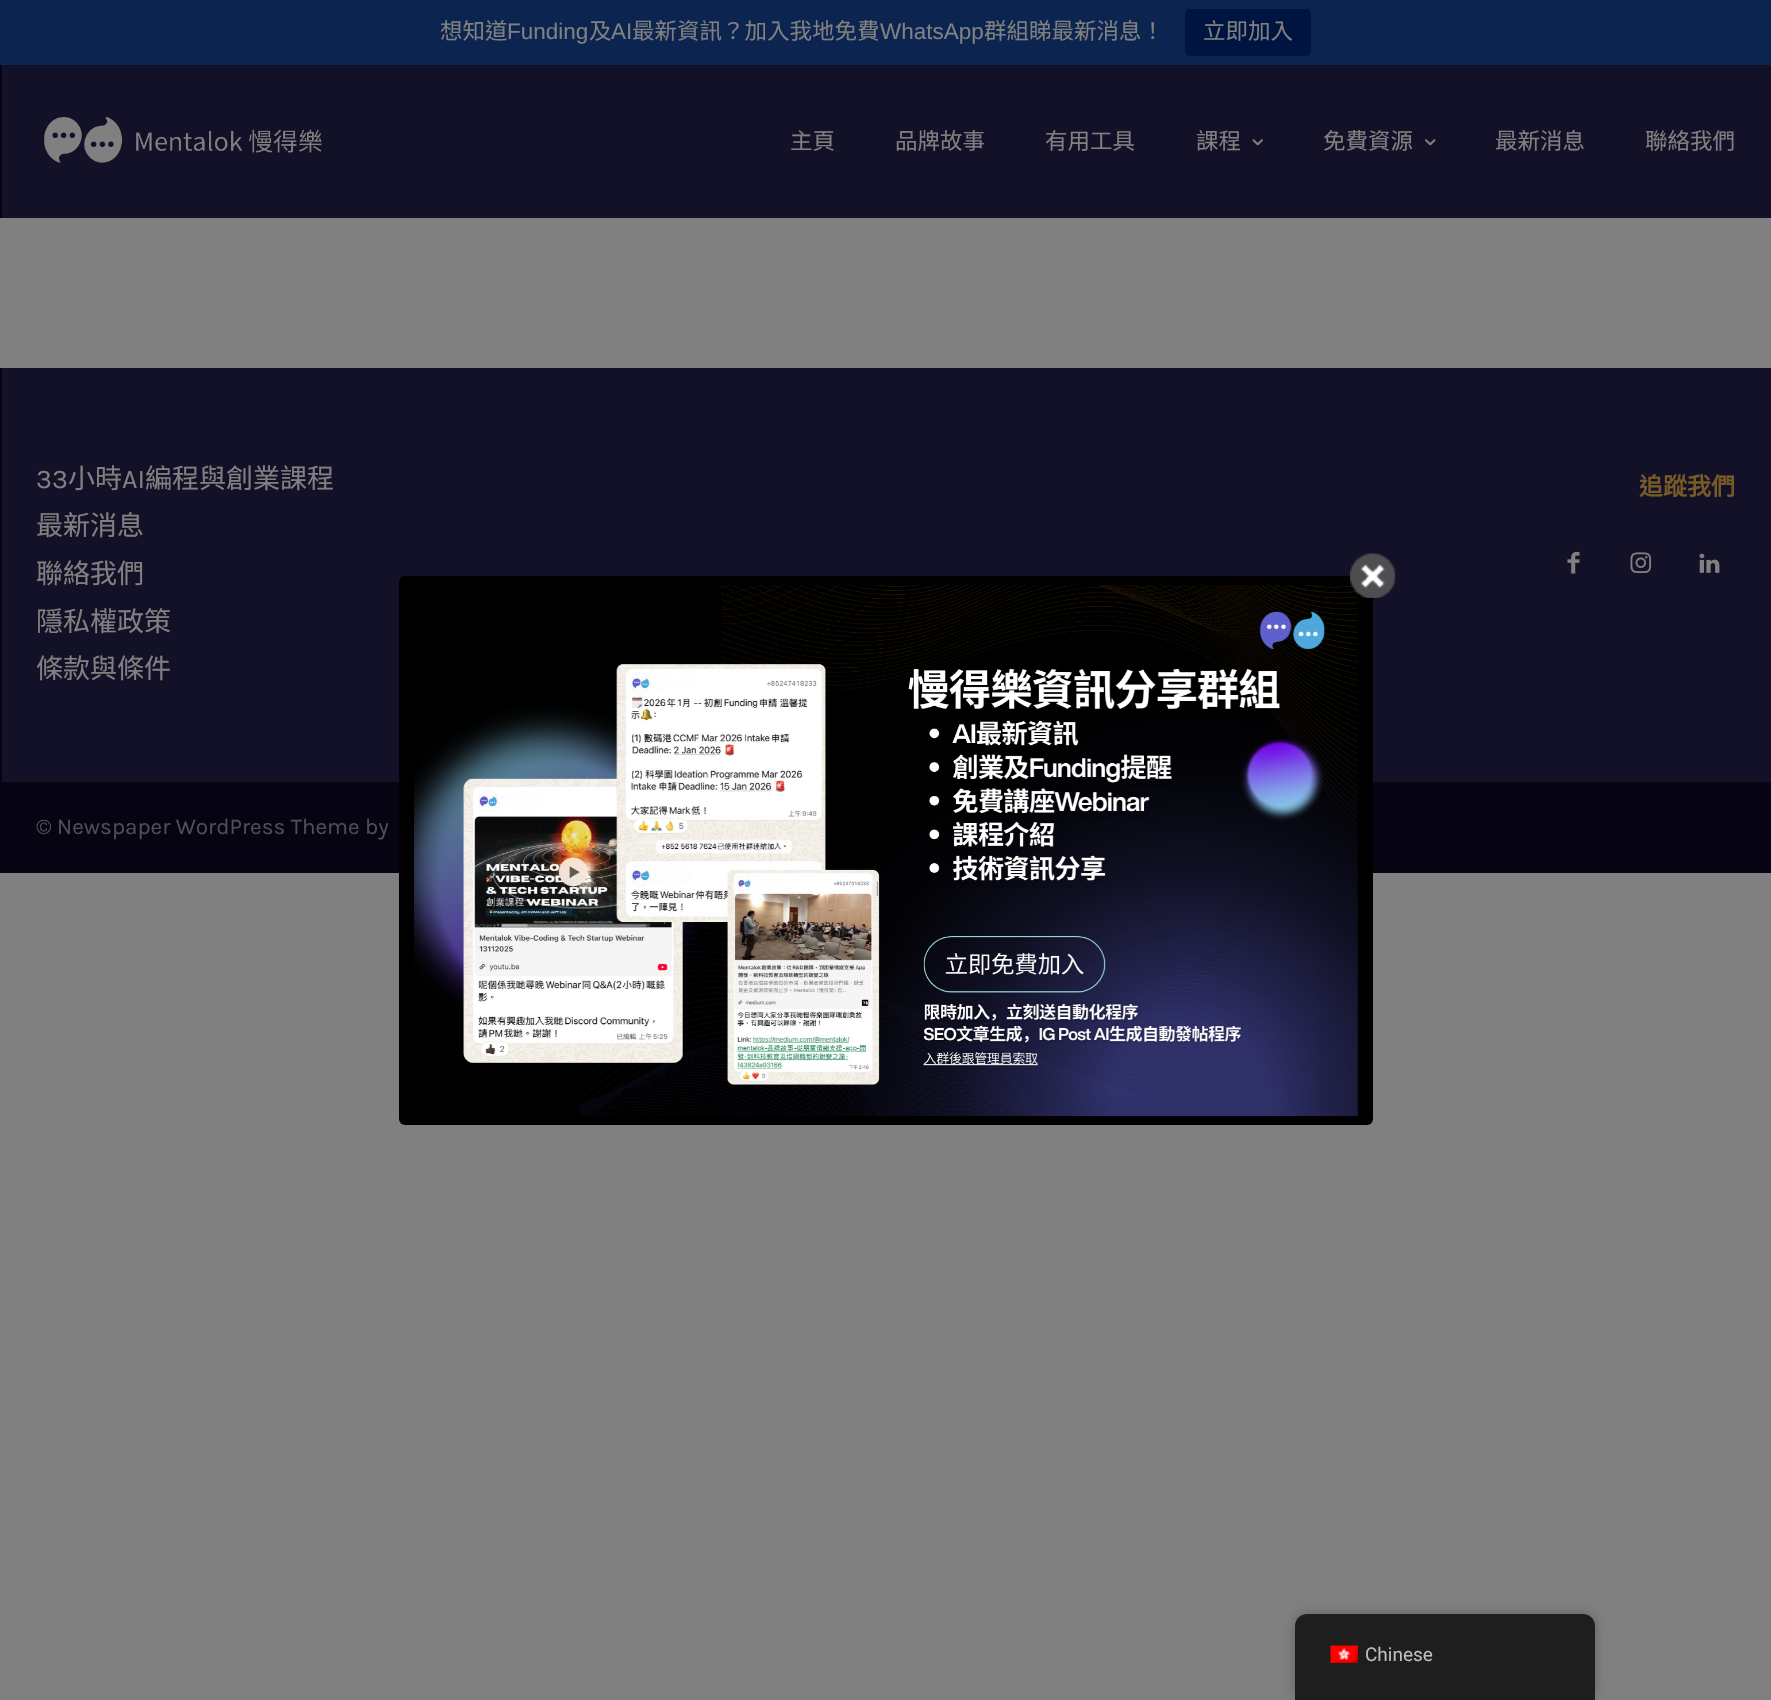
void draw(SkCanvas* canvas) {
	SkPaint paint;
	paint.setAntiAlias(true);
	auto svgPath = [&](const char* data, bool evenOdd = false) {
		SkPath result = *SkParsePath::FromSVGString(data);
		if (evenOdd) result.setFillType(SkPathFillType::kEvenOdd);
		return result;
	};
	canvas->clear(0xff808080);
	paint.setColor(0xff0c2450);
	canvas->drawRect(SkRect::MakeXYWH(0, 0, 1771, 65), paint);
	SkFont f1(fontMgr->matchFamilyStyle("Noto Sans CJK HK", SkFontStyle::Normal()), 22.5);
	f1.setSubpixel(true);
	paint.setColor(0xff808080);
	canvas->drawString("想知道", 440, 39, f1, paint);
	SkFont f2(fontMgr->matchFamilyStyle("Liberation Sans", SkFontStyle::Normal()), 22.5);
	f2.setSubpixel(true);
	canvas->drawString("Funding", 507, 39, f2, paint);
	canvas->drawString("及", 589, 39, f1, paint);
	canvas->drawString("AI", 611, 39, f2, paint);
	canvas->drawString("最新資訊？加入我地免費", 632, 39, f1, paint);
	canvas->drawString("WhatsApp", 880, 39, f2, paint);
	canvas->drawString("群組睇最新消息！", 984, 39, f1, paint);
	paint.setColor(0xff001441);
	canvas->drawRoundRect(SkRect::MakeXYWH(1185, 9, 126, 47), 5, 5, paint);
	paint.setColor(0xff808080);
	canvas->drawString("立即加入", 1203, 39, f1, paint);
	paint.setColor(0xff060412);
	canvas->drawRect(SkRect::MakeXYWH(0, 65, 2, 153), paint);
	paint.setColor(0xff131128);
	canvas->drawRect(SkRect::MakeXYWH(2, 65, 1769, 153), paint);
	canvas->drawImageRect(SkImages::DeferredFromEncodedData(SkData::MakeFromFileName("img1.png")), SkRect::MakeXYWH(44, 117, 278, 46), SkSamplingOptions());
	paint.setColor(0xff808080);
	canvas->drawString("主頁", 790, 149, f1, paint);
	canvas->drawString("品牌故事", 895, 149, f1, paint);
	canvas->drawString("有用工具", 1045, 149, f1, paint);
	canvas->drawString("課程", 1196, 149, f1, paint);
	canvas->drawImageRect(SkImages::DeferredFromEncodedData(SkData::MakeFromFileName("img2.png")), SkRect::MakeXYWH(1252, 139, 11, 7), SkSamplingOptions());
	canvas->drawString("免費資源", 1323, 149, f1, paint);
	canvas->drawImageRect(SkImages::DeferredFromEncodedData(SkData::MakeFromFileName("img3.png")), SkRect::MakeXYWH(1425, 139, 11, 7), SkSamplingOptions());
	canvas->drawString("最新消息", 1495, 149, f1, paint);
	canvas->drawString("聯絡我們", 1645, 149, f1, paint);
	paint.setColor(0xff060412);
	canvas->drawRect(SkRect::MakeXYWH(0, 368, 1771, 505), paint);
	paint.setColor(0xff131128);
	canvas->drawRect(SkRect::MakeXYWH(2, 368, 1769, 412), paint);
	paint.setColor(0xff151323);
	canvas->drawRect(SkRect::MakeXYWH(2, 780, 1769, 2), paint);
	SkFont f3(fontMgr->matchFamilyStyle("Karla", SkFontStyle::Normal()), 27);
	f3.setSubpixel(true);
	paint.setColor(0xff808080);
	canvas->drawString("33", 36, 488, f3, paint);
	SkFont f4(fontMgr->matchFamilyStyle("Noto Sans CJK HK", SkFontStyle::Normal()), 27);
	f4.setSubpixel(true);
	canvas->drawString("小時", 68, 488, f4, paint);
	canvas->drawString("AI", 122, 488, f3, paint);
	canvas->drawString("編程與創業課程", 145, 488, f4, paint);
	canvas->drawString("最新消息", 36, 535, f4, paint);
	canvas->drawString("聯絡我們", 36, 583, f4, paint);
	canvas->drawString("隱私權政策", 36, 631, f4, paint);
	canvas->drawString("條款與條件", 36, 678, f4, paint);
	SkFont f5(fontMgr->matchFamilyStyle("Noto Sans CJK HK", SkFontStyle::Bold()), 24);
	f5.setSubpixel(true);
	paint.setColor(0xff775a25);
	canvas->drawString("追蹤我們", 1639, 495, f5, paint);
	canvas->drawImageRect(SkImages::DeferredFromEncodedData(SkData::MakeFromFileName("img4.png")), SkRect::MakeXYWH(1567, 551, 13, 23), SkSamplingOptions());
	canvas->drawImageRect(SkImages::DeferredFromEncodedData(SkData::MakeFromFileName("img5.png")), SkRect::MakeXYWH(1630, 552, 22, 21), SkSamplingOptions());
	canvas->drawImageRect(SkImages::DeferredFromEncodedData(SkData::MakeFromFileName("img6.png")), SkRect::MakeXYWH(1699, 553, 21, 20), SkSamplingOptions());
	SkFont f6(fontMgr->matchFamilyStyle("Karla", SkFontStyle::Normal()), 22.5);
	f6.setSubpixel(true);
	paint.setColor(0xff4f4e54);
	canvas->drawString("© Newspaper WordPress Theme by", 36, 834, f6, paint);
	paint.setColor(0xff000000);
	canvas->drawRoundRect(SkRect::MakeXYWH(399, 576, 974, 549), 6, 6, paint);
	canvas->drawImageRect(SkImages::DeferredFromEncodedData(SkData::MakeFromFileName("img8.png")), SkRect::MakeXYWH(414, 585, 944, 531), SkSamplingOptions());
	canvas->drawImageRect(SkImages::DeferredFromEncodedData(SkData::MakeFromFileName("img7.png")), SkRect::MakeXYWH(1350, 553, 46, 45), SkSamplingOptions());
	paint.setColor(0x40000000);
	paint.setMaskFilter(SkMaskFilter::MakeBlur(kNormal_SkBlurStyle, 6));
	canvas->drawRoundRect(SkRect::MakeXYWH(1295, 1614, 300, 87), 12, 12, paint);
	paint.setMaskFilter(nullptr);
	paint.setColor(0xff1e1e1e);
	canvas->drawPath(svgPath("M1307 1614H1583C1589.5 1614 1595 1619.5 1595 1626V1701H1295V1626C1295 1619.5 1300.5 1614 1307 1614Z"), paint);
	canvas->drawImageRect(SkImages::DeferredFromEncodedData(SkData::MakeFromFileName("img9.png")), SkRect::MakeXYWH(1330, 1645, 28, 18), SkSamplingOptions());
	SkFont f7(fontMgr->matchFamilyStyle("Roboto", SkFontStyle::Normal()), 19);
	f7.setSubpixel(true);
	paint.setColor(0xffbdbdbd);
	canvas->drawString("Chinese", 1365, 1661, f7, paint);
}
